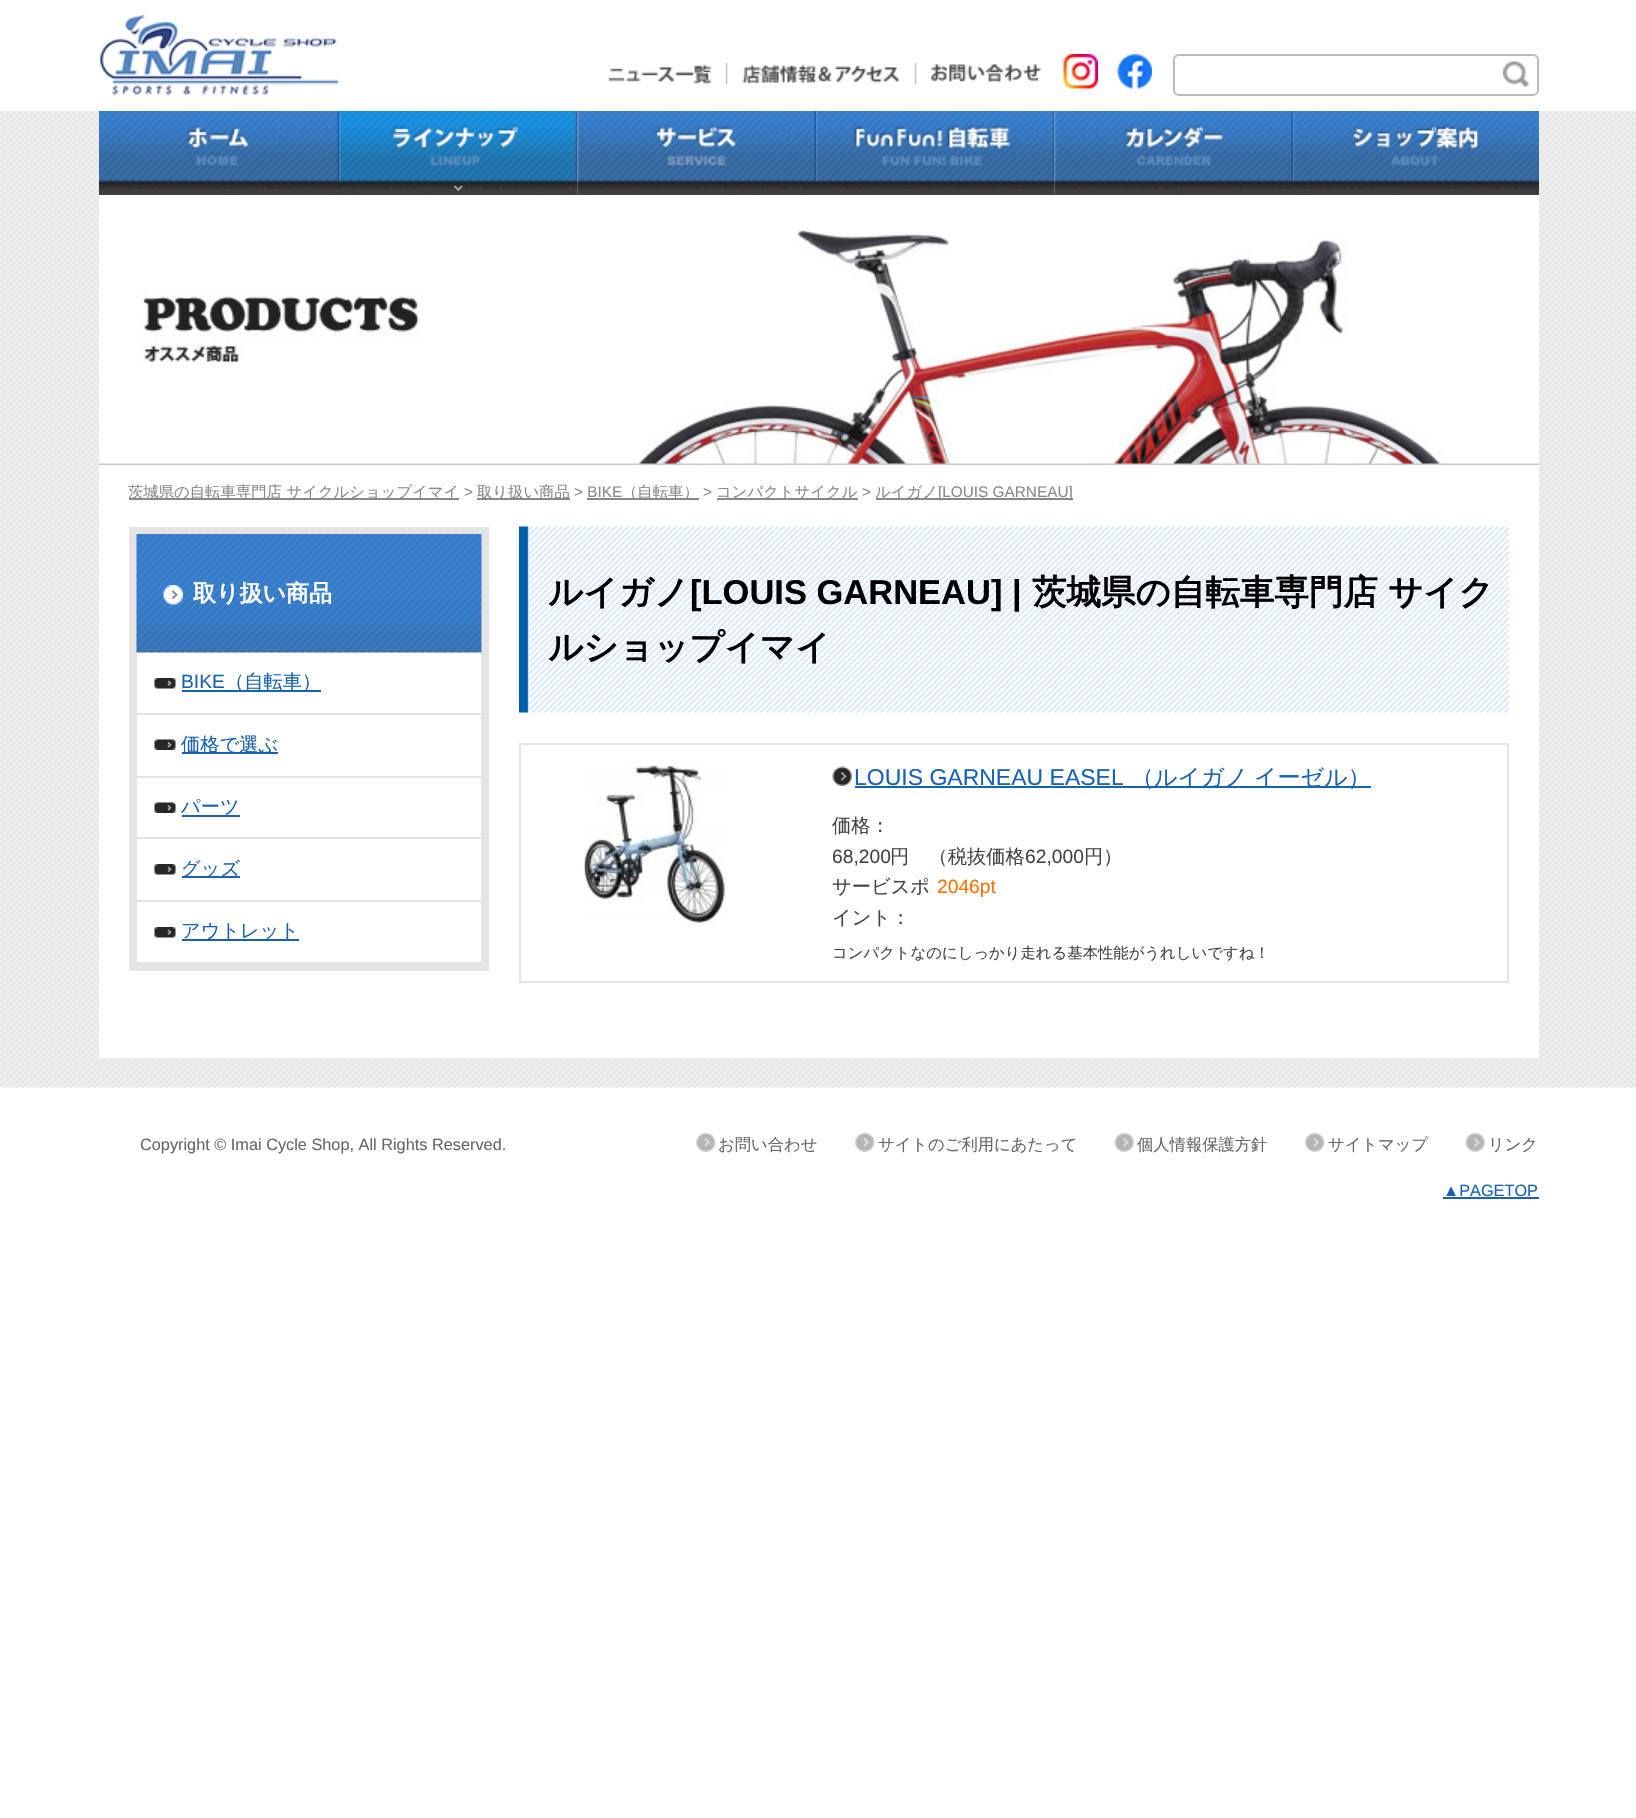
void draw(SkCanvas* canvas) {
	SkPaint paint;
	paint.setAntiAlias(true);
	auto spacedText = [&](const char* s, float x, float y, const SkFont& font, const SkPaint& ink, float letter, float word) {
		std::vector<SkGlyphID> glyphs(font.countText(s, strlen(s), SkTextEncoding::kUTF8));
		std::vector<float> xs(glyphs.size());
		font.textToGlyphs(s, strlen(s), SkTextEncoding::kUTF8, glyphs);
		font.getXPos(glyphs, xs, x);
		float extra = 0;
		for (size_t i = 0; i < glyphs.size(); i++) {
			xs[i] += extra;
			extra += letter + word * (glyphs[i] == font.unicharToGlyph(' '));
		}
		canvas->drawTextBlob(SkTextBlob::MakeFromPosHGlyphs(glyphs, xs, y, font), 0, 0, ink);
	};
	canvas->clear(0xffffffff);
	canvas->drawImageRect(SkImages::DeferredFromEncodedData(SkData::MakeFromFileName("img1.png")), SkRect::MakeXYWH(99, 15, 240, 80), SkSamplingOptions());
	canvas->drawImageRect(SkImages::DeferredFromEncodedData(SkData::MakeFromFileName("img2.png")), SkRect::MakeXYWH(609, 63, 119, 21), SkSamplingOptions());
	canvas->drawImageRect(SkImages::DeferredFromEncodedData(SkData::MakeFromFileName("img3.png")), SkRect::MakeXYWH(727, 63, 190, 21), SkSamplingOptions());
	canvas->drawImageRect(SkImages::DeferredFromEncodedData(SkData::MakeFromFileName("img4.png")), SkRect::MakeXYWH(916, 63, 125, 21), SkSamplingOptions());
	canvas->drawImageRect(SkImages::DeferredFromEncodedData(SkData::MakeFromFileName("img5.png")), SkRect::MakeXYWH(1063, 54, 35, 35), SkSamplingOptions());
	canvas->drawImageRect(SkImages::DeferredFromEncodedData(SkData::MakeFromFileName("img6.png")), SkRect::MakeXYWH(1117, 54, 35, 35), SkSamplingOptions());
	paint.setStroke(true);
	paint.setStrokeWidth(2);
	paint.setColor(0xffbbbbbb);
	canvas->drawRoundRect(SkRect::MakeXYWH(1174, 55, 364, 40), 5, 5, paint);
	canvas->drawImageRect(SkImages::DeferredFromEncodedData(SkData::MakeFromFileName("img7.png")), SkRect::MakeXYWH(1503, 61, 26, 26), SkSamplingOptions());
	canvas->drawImageRect(SkImages::DeferredFromEncodedData(SkData::MakeFromFileName("img8.png")), SkRect::MakeXYWH(0, 111, 1636, 84), SkSamplingOptions());
	canvas->drawImageRect(SkImages::DeferredFromEncodedData(SkData::MakeFromFileName("img9.png")), SkRect::MakeXYWH(99, 111, 240, 84), SkSamplingOptions());
	canvas->drawImageRect(SkImages::DeferredFromEncodedData(SkData::MakeFromFileName("img10.png")), SkRect::MakeXYWH(339, 111, 239, 84), SkSamplingOptions());
	canvas->drawImageRect(SkImages::DeferredFromEncodedData(SkData::MakeFromFileName("img11.png")), SkRect::MakeXYWH(577, 111, 239, 84), SkSamplingOptions());
	canvas->drawImageRect(SkImages::DeferredFromEncodedData(SkData::MakeFromFileName("img12.png")), SkRect::MakeXYWH(816, 111, 239, 84), SkSamplingOptions());
	canvas->drawImageRect(SkImages::DeferredFromEncodedData(SkData::MakeFromFileName("img13.png")), SkRect::MakeXYWH(1054, 111, 239, 84), SkSamplingOptions());
	canvas->drawImageRect(SkImages::DeferredFromEncodedData(SkData::MakeFromFileName("img14.png")), SkRect::MakeXYWH(1293, 111, 246, 84), SkSamplingOptions());
	canvas->drawImageRect(SkImages::DeferredFromEncodedData(SkData::MakeFromFileName("img15.png")), SkRect::MakeXYWH(0, 195, 1636, 893), SkSamplingOptions());
	paint.setStroke(false);
	paint.setColor(0xffffffff);
	canvas->drawRect(SkRect::MakeXYWH(99, 195, 1440, 863), paint);
	canvas->drawImageRect(SkImages::DeferredFromEncodedData(SkData::MakeFromFileName("img16.png")), SkRect::MakeXYWH(99, 230, 1440, 235), SkSamplingOptions());
	paint.setColor(0xff888888);
	canvas->drawRect(SkRect::MakeXYWH(129, 498, 330, 2), paint);
	SkFont f1(fontMgr->matchFamilyStyle("WenQuanYi Zen Hei", SkFontStyle(500, SkFontStyle::kNormal_Width, SkFontStyle::kUpright_Slant)), 15.35);
	f1.setSubpixel(true);
	canvas->drawString("茨城県の自転車専門店 サイクルショップイマイ", 128, 497, f1, paint);
	SkFont f2(fontMgr->matchFamilyStyle("Liberation Sans", SkFontStyle::Normal()), 15.35);
	f2.setSubpixel(true);
	canvas->drawString(">", 464, 497, f2, paint);
	canvas->drawRect(SkRect::MakeXYWH(477, 498, 93, 2), paint);
	canvas->drawString("取り扱い商品", 477, 497, f1, paint);
	canvas->drawString("> BIKE", 574, 497, f2, paint);
	canvas->drawRect(SkRect::MakeXYWH(587, 498, 112, 2), paint);
	canvas->drawString("（自転車）", 622, 497, f1, paint);
	canvas->drawString(">", 703, 497, f2, paint);
	canvas->drawRect(SkRect::MakeXYWH(717, 498, 141, 2), paint);
	canvas->drawString("コンパクトサイクル", 716, 497, f1, paint);
	canvas->drawString(">", 862, 497, f2, paint);
	canvas->drawRect(SkRect::MakeXYWH(876, 498, 197, 2), paint);
	canvas->drawString("ルイガノ", 875, 497, f1, paint);
	canvas->drawString("[LOUIS GARNEAU]", 938, 497, f2, paint);
	paint.setStroke(true);
	paint.setStrokeWidth(8);
	paint.setColor(0xffe4e4e4);
	canvas->drawRect(SkRect::MakeXYWH(133, 531, 352, 436), paint);
	canvas->drawImageRect(SkImages::DeferredFromEncodedData(SkData::MakeFromFileName("img17.png")), SkRect::MakeXYWH(136, 534, 346, 119), SkSamplingOptions());
	canvas->drawImageRect(SkImages::DeferredFromEncodedData(SkData::MakeFromFileName("img18.png")), SkRect::MakeXYWH(163, 585, 20, 20), SkSamplingOptions());
	SkFont f3(fontMgr->matchFamilyStyle("WenQuanYi Zen Hei", SkFontStyle::Bold()), 23);
	f3.setSubpixel(true);
	paint.setStroke(false);
	paint.setColor(0xffffffff);
	canvas->drawString("取り扱い商品", 193, 601, f3, paint);
	canvas->drawImageRect(SkImages::DeferredFromEncodedData(SkData::MakeFromFileName("img19.png")), SkRect::MakeXYWH(154, 678, 22, 11), SkSamplingOptions());
	paint.setColor(0xffe3e3e3);
	canvas->drawRect(SkRect::MakeXYWH(137, 713, 345, 2), paint);
	SkFont f4(fontMgr->matchFamilyStyle("Liberation Sans", SkFontStyle::Normal()), 19.25);
	f4.setSubpixel(true);
	paint.setColor(0xff1762b6);
	canvas->drawString("BIKE", 181, 688, f4, paint);
	canvas->drawRect(SkRect::MakeXYWH(182, 690, 139, 2), paint);
	SkFont f5(fontMgr->matchFamilyStyle("WenQuanYi Zen Hei", SkFontStyle(500, SkFontStyle::kNormal_Width, SkFontStyle::kUpright_Slant)), 19.25);
	f5.setSubpixel(true);
	canvas->drawString("（自転車）", 225, 688, f5, paint);
	canvas->drawImageRect(SkImages::DeferredFromEncodedData(SkData::MakeFromFileName("img20.png")), SkRect::MakeXYWH(154, 739, 22, 11), SkSamplingOptions());
	paint.setColor(0xffe3e3e3);
	canvas->drawRect(SkRect::MakeXYWH(137, 776, 345, 2), paint);
	paint.setColor(0xff1762b6);
	canvas->drawRect(SkRect::MakeXYWH(182, 752, 96, 2), paint);
	canvas->drawString("価格で選ぶ", 181, 751, f5, paint);
	canvas->drawImageRect(SkImages::DeferredFromEncodedData(SkData::MakeFromFileName("img20.png")), SkRect::MakeXYWH(154, 802, 22, 11), SkSamplingOptions());
	paint.setColor(0xffe3e3e3);
	canvas->drawRect(SkRect::MakeXYWH(137, 837, 345, 2), paint);
	paint.setColor(0xff1762b6);
	canvas->drawString("パーツ", 181, 813, f5, paint);
	canvas->drawRect(SkRect::MakeXYWH(182, 815, 58, 2), paint);
	canvas->drawImageRect(SkImages::DeferredFromEncodedData(SkData::MakeFromFileName("img19.png")), SkRect::MakeXYWH(154, 864, 22, 11), SkSamplingOptions());
	paint.setColor(0xffe3e3e3);
	canvas->drawRect(SkRect::MakeXYWH(137, 900, 345, 2), paint);
	paint.setColor(0xff1762b6);
	canvas->drawRect(SkRect::MakeXYWH(182, 876, 58, 2), paint);
	canvas->drawString("グッズ", 181, 875, f5, paint);
	canvas->drawImageRect(SkImages::DeferredFromEncodedData(SkData::MakeFromFileName("img19.png")), SkRect::MakeXYWH(154, 927, 22, 11), SkSamplingOptions());
	paint.setColor(0xffe3e3e3);
	canvas->drawRect(SkRect::MakeXYWH(137, 962, 345, 1), paint);
	paint.setColor(0xff1762b6);
	canvas->drawRect(SkRect::MakeXYWH(182, 939, 117, 2), paint);
	canvas->drawString("アウトレット", 181, 937, f5, paint);
	canvas->drawImageRect(SkImages::DeferredFromEncodedData(SkData::MakeFromFileName("img21.png")), SkRect::MakeXYWH(519, 526, 990, 187), SkSamplingOptions());
	SkFont f6(fontMgr->matchFamilyStyle("WenQuanYi Zen Hei", SkFontStyle::Bold()), 34.5);
	f6.setSubpixel(true);
	paint.setColor(0xff000000);
	canvas->drawString("ルイガノ", 548, 604, f6, paint);
	SkFont f7(fontMgr->matchFamilyStyle("Liberation Sans", SkFontStyle::Bold()), 34.5);
	f7.setSubpixel(true);
	canvas->drawString("[LOUIS GARNEAU] |", 690, 604, f7, paint);
	canvas->drawString("茨城県の自転車専門店", 1032, 604, f6, paint);
	canvas->drawString("サイク", 1388, 604, f6, paint);
	canvas->drawString("ルショップイマイ", 548, 659, f6, paint);
	paint.setStroke(true);
	paint.setStrokeWidth(2);
	paint.setColor(0xffe4e4e4);
	canvas->drawRect(SkRect::MakeXYWH(520, 744, 988, 238), paint);
	canvas->drawImageRect(SkImages::DeferredFromEncodedData(SkData::MakeFromFileName("img22.png")), SkRect::MakeXYWH(583, 759, 144, 165), SkSamplingOptions());
	canvas->drawImageRect(SkImages::DeferredFromEncodedData(SkData::MakeFromFileName("img23.png")), SkRect::MakeXYWH(832, 766, 20, 20), SkSamplingOptions());
	SkFont f8(fontMgr->matchFamilyStyle("Liberation Sans", SkFontStyle::Normal()), 23);
	f8.setSubpixel(true);
	paint.setStroke(false);
	paint.setColor(0xff1762b6);
	canvas->drawString("LOUIS GARNEAU EASEL", 854, 785, f8, paint);
	canvas->drawRect(SkRect::MakeXYWH(855, 786, 516, 2), paint);
	SkFont f9(fontMgr->matchFamilyStyle("WenQuanYi Zen Hei", SkFontStyle(500, SkFontStyle::kNormal_Width, SkFontStyle::kUpright_Slant)), 23);
	f9.setSubpixel(true);
	spacedText("（ルイガノ イーゼル）", 1131, 785, f9, paint, 0, -1);
	paint.setColor(0xff444444);
	canvas->drawString("価格：", 832, 832, f5, paint);
	canvas->drawString("68,200", 832, 863, f4, paint);
	canvas->drawString("円　（税抜価格", 890, 863, f5, paint);
	canvas->drawString("62,000", 1025, 863, f4, paint);
	canvas->drawString("円）", 1084, 863, f5, paint);
	canvas->drawString("サービスポ", 832, 893, f5, paint);
	canvas->drawString("イント：", 832, 924, f5, paint);
	paint.setColor(0xffff7200);
	canvas->drawString("2046pt", 937, 893, f4, paint);
	paint.setColor(0xff444444);
	canvas->drawString("コンパクトなのにしっかり走れる基本性能がうれしいですね！", 832, 958, f1, paint);
	SkFont f10(fontMgr->matchFamilyStyle("Liberation Sans", SkFontStyle::Normal()), 16.3);
	f10.setSubpixel(true);
	paint.setColor(0xff666666);
	canvas->drawString("Copyright © Imai Cycle Shop, All Rights Reserved.", 140, 1150, f10, paint);
	canvas->drawImageRect(SkImages::DeferredFromEncodedData(SkData::MakeFromFileName("img24.png")), SkRect::MakeXYWH(696, 1132, 20, 20), SkSamplingOptions());
	SkFont f11(fontMgr->matchFamilyStyle("WenQuanYi Zen Hei", SkFontStyle(500, SkFontStyle::kNormal_Width, SkFontStyle::kUpright_Slant)), 16.3);
	f11.setSubpixel(true);
	canvas->drawString("お問い合わせ", 718, 1150, f11, paint);
	canvas->drawImageRect(SkImages::DeferredFromEncodedData(SkData::MakeFromFileName("img24.png")), SkRect::MakeXYWH(855, 1132, 20, 20), SkSamplingOptions());
	canvas->drawString("サイトのご利用にあたって", 878, 1150, f11, paint);
	canvas->drawImageRect(SkImages::DeferredFromEncodedData(SkData::MakeFromFileName("img25.png")), SkRect::MakeXYWH(1114, 1132, 20, 20), SkSamplingOptions());
	canvas->drawString("個人情報保護方針", 1137, 1150, f11, paint);
	canvas->drawImageRect(SkImages::DeferredFromEncodedData(SkData::MakeFromFileName("img24.png")), SkRect::MakeXYWH(1305, 1132, 20, 20), SkSamplingOptions());
	canvas->drawString("サイトマップ", 1328, 1150, f11, paint);
	canvas->drawImageRect(SkImages::DeferredFromEncodedData(SkData::MakeFromFileName("img25.png")), SkRect::MakeXYWH(1465, 1132, 20, 20), SkSamplingOptions());
	canvas->drawString("リンク", 1488, 1150, f11, paint);
	paint.setColor(0xff1762b6);
	canvas->drawString("▲PAGETOP", 1443, 1196, f10, paint);
	canvas->drawRect(SkRect::MakeXYWH(1443, 1197, 96, 2), paint);
}
